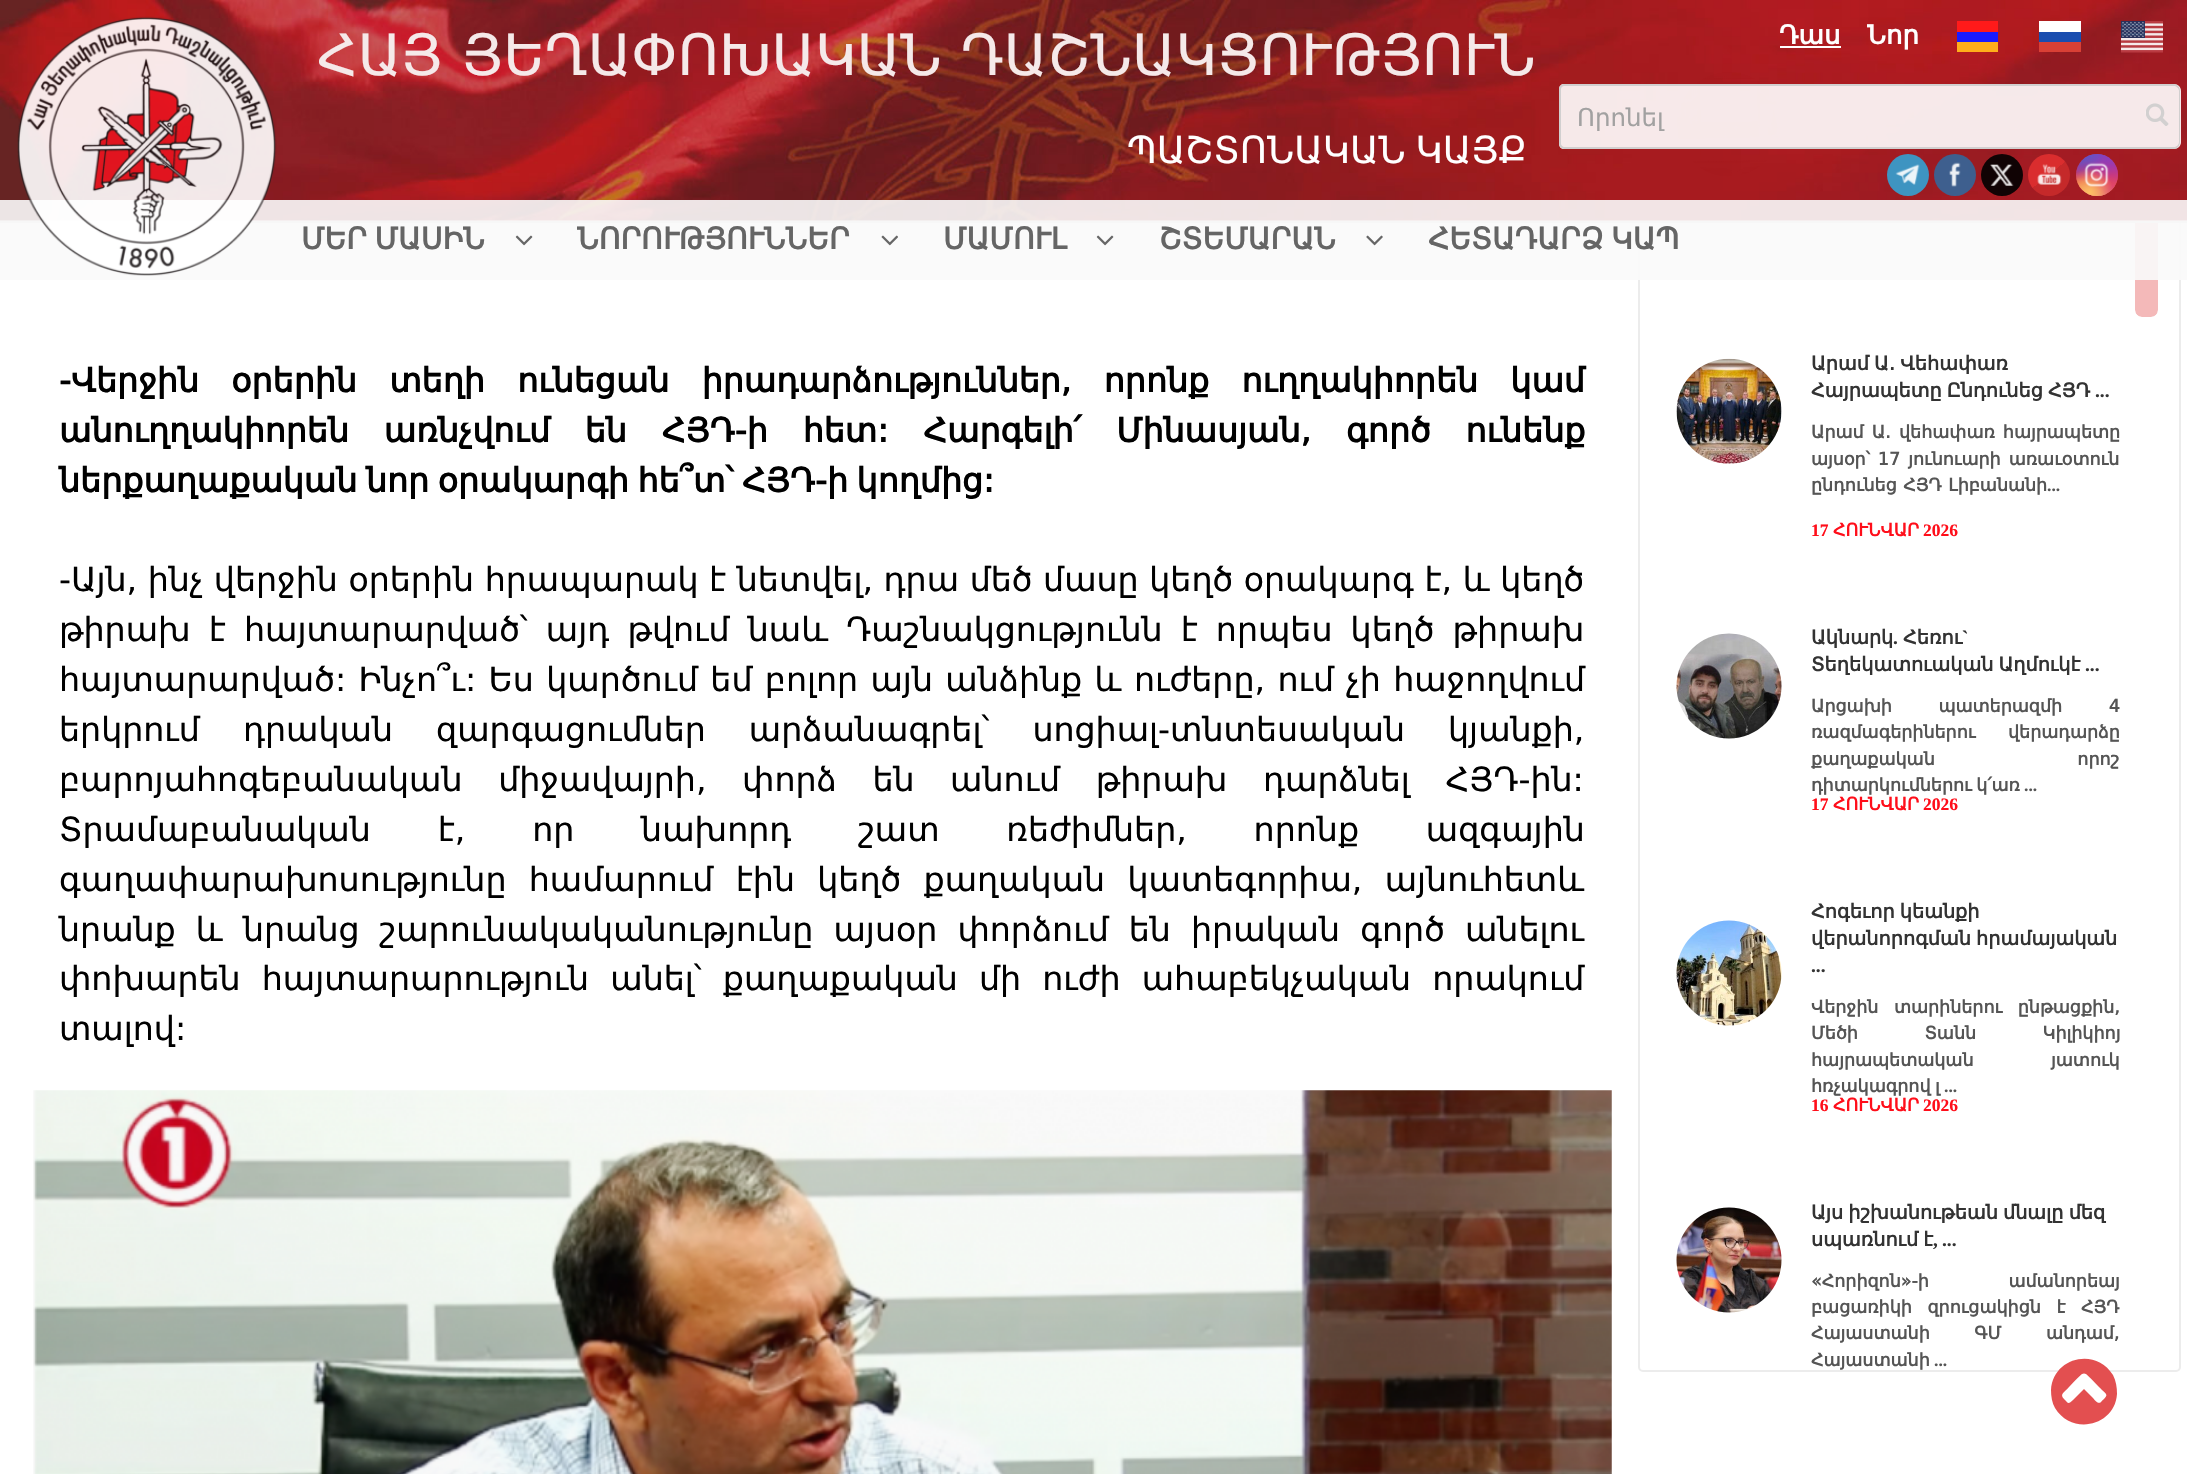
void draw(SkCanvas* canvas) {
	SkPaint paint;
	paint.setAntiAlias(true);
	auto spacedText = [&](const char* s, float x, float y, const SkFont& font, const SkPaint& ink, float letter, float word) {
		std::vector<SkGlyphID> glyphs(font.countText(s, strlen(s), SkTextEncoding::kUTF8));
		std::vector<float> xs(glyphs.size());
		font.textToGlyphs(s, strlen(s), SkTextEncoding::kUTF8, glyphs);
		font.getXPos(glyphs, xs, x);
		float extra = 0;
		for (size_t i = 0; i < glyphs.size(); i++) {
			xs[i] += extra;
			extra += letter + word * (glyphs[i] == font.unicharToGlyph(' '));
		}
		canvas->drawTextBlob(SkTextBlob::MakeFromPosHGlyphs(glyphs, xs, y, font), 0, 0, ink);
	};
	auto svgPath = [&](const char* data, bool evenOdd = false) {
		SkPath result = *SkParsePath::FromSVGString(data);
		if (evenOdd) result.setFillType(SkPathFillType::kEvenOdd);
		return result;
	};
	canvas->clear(0xffffffff);
	paint.setStroke(true);
	paint.setStrokeWidth(2);
	paint.setColor(0xffececec);
	canvas->drawRoundRect(SkRect::MakeXYWH(1639, -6, 541, 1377), 4, 4, paint);
	canvas->drawImageRect(SkImages::DeferredFromEncodedData(SkData::MakeFromFileName("img15.png")), SkRect::MakeXYWH(1676, 71, 106, 106), SkSamplingOptions());
	paint.setStroke(false);
	paint.setColor(0xfff4b9b9);
	canvas->drawRoundRect(SkRect::MakeXYWH(2135, -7, 23, 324), 7, 7, paint);
	paint.setStroke(true);
	paint.setColor(0xffffffff);
	canvas->drawRoundRect(SkRect::MakeXYWH(2134, -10, 25, 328), 8, 8, paint);
	paint.setStroke(false);
	paint.setColor(0xe6ffffff);
	canvas->drawRect(SkRect::MakeXYWH(1638, 0, 543, 222), paint);
	paint.setColor(0xe6dddddd);
	canvas->drawRect(SkRect::MakeXYWH(0, 221, 2187, 2), paint);
	canvas->drawImageRect(SkImages::DeferredFromEncodedData(SkData::MakeFromFileName("img1.png")), SkRect::MakeXYWH(0, 0, 2187, 221), SkSamplingOptions());
	paint.setColor(0xe6fafafa);
	canvas->drawRect(SkRect::MakeXYWH(0, 200, 2187, 80), paint);
	canvas->drawImageRect(SkImages::DeferredFromEncodedData(SkData::MakeFromFileName("img2.png")), SkRect::MakeXYWH(17, 16, 260, 260), SkSamplingOptions());
	SkFont f1(fontMgr->matchFamilyStyle("DejaVu Sans", SkFontStyle::Normal()), 56.9);
	f1.setSubpixel(true);
	paint.setColor(0xfff5e9e9);
	spacedText("ՀԱՅ ՅԵՂԱՓՈԽԱԿԱՆ ԴԱՇՆԱԿՑՈՒԹՅՈՒՆ", 317, 75, f1, paint, 0, 1);
	SkFont f2(fontMgr->matchFamilyStyle("DejaVu Sans", SkFontStyle::Normal()), 37.25);
	f2.setSubpixel(true);
	paint.setColor(0xffffffff);
	spacedText("ՊԱՇՏՈՆԱԿԱՆ ԿԱՅՔ", 1127, 163, f2, paint, 0, -2);
	SkFont f3(fontMgr->matchFamilyStyle("DejaVu Sans", SkFontStyle::Bold()), 26);
	f3.setSubpixel(true);
	canvas->drawString("Դաս", 1779, 44, f3, paint);
	canvas->drawRect(SkRect::MakeXYWH(1780, 46, 61, 2), paint);
	canvas->drawString("Նոր", 1867, 44, f3, paint);
	paint.setColor(0xffff1a1a);
	canvas->drawRect(SkRect::MakeXYWH(1957, 21, 41, 11), paint);
	paint.setColor(0xff1a1aff);
	canvas->drawRect(SkRect::MakeXYWH(1957, 32, 41, 10), paint);
	paint.setColor(0xffffae1a);
	canvas->drawRect(SkRect::MakeXYWH(1957, 42, 41, 10), paint);
	paint.setColor(0xffffffff);
	canvas->drawRect(SkRect::MakeXYWH(2039, 21, 42, 11), paint);
	paint.setColor(0xff1a4daf);
	canvas->drawRect(SkRect::MakeXYWH(2039, 32, 42, 10), paint);
	paint.setColor(0xffd94035);
	canvas->drawRect(SkRect::MakeXYWH(2039, 42, 42, 10), paint);
	canvas->drawImageRect(SkImages::DeferredFromEncodedData(SkData::MakeFromFileName("img3.png")), SkRect::MakeXYWH(2121, 21, 42, 32), SkSamplingOptions());
	paint.setColor(0xe6ffffff);
	canvas->drawPath(svgPath("M2146 84H2174C2178 84 2181 87 2181 91V142C2181 146 2178 149 2174 149H2146Z"), paint);
	paint.setColor(0xe6cccccc);
	canvas->drawPath(svgPath("M2146 84H2174C2177 84 2180 87 2180 91V142C2180 146 2177 149 2174 149H2146ZM2146 86H2174C2176 86 2179 88 2179 91V142C2179 145 2176 147 2174 147H2146Z", true), paint);
	canvas->drawImageRect(SkImages::DeferredFromEncodedData(SkData::MakeFromFileName("img4.png")), SkRect::MakeXYWH(2145, 103, 24, 23), SkSamplingOptions());
	paint.setColor(0xe6ffffff);
	canvas->drawPath(svgPath("M1564 84H2146V149H1564C1561 149 1559 147 1559 144V89C1559 86 1561 84 1564 84Z"), paint);
	paint.setColor(0xe6cccccc);
	canvas->drawPath(svgPath("M1564 84H2146V149H1564C1562 149 1559 146 1559 144V89C1559 86 1562 84 1564 84ZM1564 86H2146V147H1564C1563 147 1561 145 1561 144V89C1561 87 1563 86 1564 86Z", true), paint);
	canvas->save();
	canvas->clipRect(SkRect::MakeXYWH(1577, 102, 551, 29));
	SkFont f4(fontMgr->matchFamilyStyle("DejaVu Sans", SkFontStyle::Normal()), 24.5);
	f4.setSubpixel(true);
	paint.setColor(0xffa2a1a1);
	canvas->drawString("Որոնել", 1577, 126, f4, paint);
	canvas->restore();
	paint.setColor(0xe633a1d1);
	canvas->drawCircle(1908, 175, 21, paint);
	canvas->drawImageRect(SkImages::DeferredFromEncodedData(SkData::MakeFromFileName("img5.png")), SkRect::MakeXYWH(1895, 164, 25, 21), SkSamplingOptions());
	paint.setColor(0xe6336699);
	canvas->drawCircle(1955, 175, 21, paint);
	canvas->drawImageRect(SkImages::DeferredFromEncodedData(SkData::MakeFromFileName("img6.png")), SkRect::MakeXYWH(1949, 162, 12, 25), SkSamplingOptions());
	paint.setColor(0xe6000000);
	canvas->drawCircle(2002, 175, 21, paint);
	canvas->drawImageRect(SkImages::DeferredFromEncodedData(SkData::MakeFromFileName("img7.png")), SkRect::MakeXYWH(1990, 164, 24, 22), SkSamplingOptions());
	{
		const SkColor colors[] = {0xe6e02f2f, 0xe6e02f2f, 0xe6c92a2a, 0xe6c92a2a};
		const float stops[] = {0.14, 0.49, 0.49, 0.85};
		const SkPoint ends[] = {{2031, 152}, {2068, 198}};
		paint.setShader(SkGradientShader::MakeLinear(ends, colors, stops, 4, SkTileMode::kClamp));
		paint.setAlpha(255);
	}
	canvas->drawCircle(2049, 175, 21, paint);
	canvas->drawImageRect(SkImages::DeferredFromEncodedData(SkData::MakeFromFileName("img8.png")), SkRect::MakeXYWH(2037, 164, 25, 21), SkSamplingOptions());
	{
		const SkColor colors[] = {0xe66559ca, 0xe6bc318f, 0xe6e33f5f, 0xe6f77638, 0xe6fec66d};
		const float stops[] = {0, 0.3, 0.5, 0.7, 1};
		const SkPoint ends[] = {{2097, 154}, {2097, 196}};
		paint.setShader(SkGradientShader::MakeLinear(ends, colors, stops, 5, SkTileMode::kClamp));
		paint.setAlpha(255);
	}
	canvas->drawCircle(2097, 175, 21, paint);
	{
		const SkColor colors[] = {0xe6d9317a, 0x00d9317a};
		const float stops[] = {0, 1};
		paint.setShader(SkGradientShader::MakeRadial({2118, 196}, 59, colors, stops, 2, SkTileMode::kClamp));
		paint.setAlpha(255);
	}
	canvas->drawCircle(2097, 175, 21, paint);
	{
		const SkColor colors[] = {0xe6893dc2, 0x00893dc2};
		const float stops[] = {0, 0.5};
		SkMatrix m = SkMatrix::Translate(2101, 146).preScale(36, 71);
		paint.setShader(SkGradientShader::MakeRadial({0, 0}, 1, colors, stops, 2, SkTileMode::kClamp, 0, &m));
		paint.setAlpha(255);
	}
	canvas->drawCircle(2097, 175, 21, paint);
	{
		const SkColor colors[] = {0xe6893dc2, 0x00893dc2};
		const float stops[] = {0, 0.5};
		paint.setShader(SkGradientShader::MakeRadial({2118, 154}, 59, colors, stops, 2, SkTileMode::kClamp));
		paint.setAlpha(255);
	}
	canvas->drawCircle(2097, 175, 21, paint);
	{
		const SkColor colors[] = {0xe65258cf, 0x005258cf};
		const float stops[] = {0, 0.5};
		SkMatrix m = SkMatrix::Translate(2084, 133).preScale(48, 89);
		paint.setShader(SkGradientShader::MakeRadial({0, 0}, 1, colors, stops, 2, SkTileMode::kClamp, 0, &m));
		paint.setAlpha(255);
	}
	canvas->drawCircle(2097, 175, 21, paint);
	{
		const SkColor colors[] = {0xe65258cf, 0x005258cf};
		const float stops[] = {0, 0.5};
		SkMatrix m = SkMatrix::Translate(2076, 144).preScale(59, 74);
		paint.setShader(SkGradientShader::MakeRadial({0, 0}, 1, colors, stops, 2, SkTileMode::kClamp, 0, &m));
		paint.setAlpha(255);
	}
	canvas->drawCircle(2097, 175, 21, paint);
	{
		const SkColor colors[] = {0xe6fec564, 0x00fec564};
		const float stops[] = {0, 0.5};
		paint.setShader(SkGradientShader::MakeRadial({2076, 213}, 72, colors, stops, 2, SkTileMode::kClamp));
		paint.setAlpha(255);
	}
	canvas->drawCircle(2097, 175, 21, paint);
	{
		const SkColor colors[] = {0xe6fec564, 0x00fec564};
		const float stops[] = {0, 0.5};
		paint.setShader(SkGradientShader::MakeRadial({2090, 192}, 47, colors, stops, 2, SkTileMode::kClamp));
		paint.setAlpha(255);
	}
	canvas->drawCircle(2097, 175, 21, paint);
	canvas->drawImageRect(SkImages::DeferredFromEncodedData(SkData::MakeFromFileName("img9.png")), SkRect::MakeXYWH(2084, 162, 25, 25), SkSamplingOptions());
	SkFont f5(fontMgr->matchFamilyStyle("DejaVu Sans", SkFontStyle::Bold()), 29.75);
	f5.setSubpixel(true);
	paint.setShader(nullptr);
	paint.setColor(0xff656565);
	spacedText("ՄԵՐ ՄԱՍԻՆ", 301, 249, f5, paint, 0, -2);
	canvas->drawImageRect(SkImages::DeferredFromEncodedData(SkData::MakeFromFileName("img10.png")), SkRect::MakeXYWH(515, 235, 18, 11), SkSamplingOptions());
	canvas->drawString("ՆՈՐՈՒԹՅՈՒՆՆԵՐ", 577, 249, f5, paint);
	canvas->drawImageRect(SkImages::DeferredFromEncodedData(SkData::MakeFromFileName("img11.png")), SkRect::MakeXYWH(881, 235, 17, 11), SkSamplingOptions());
	canvas->drawString("ՄԱՄՈՒԼ", 943, 249, f5, paint);
	canvas->drawImageRect(SkImages::DeferredFromEncodedData(SkData::MakeFromFileName("img12.png")), SkRect::MakeXYWH(1096, 235, 18, 11), SkSamplingOptions());
	canvas->drawString("ՇՏԵՄԱՐԱՆ", 1159, 249, f5, paint);
	canvas->drawImageRect(SkImages::DeferredFromEncodedData(SkData::MakeFromFileName("img13.png")), SkRect::MakeXYWH(1366, 235, 17, 11), SkSamplingOptions());
	spacedText("ՀԵՏԱԴԱՐՁ ԿԱՊ", 1428, 249, f5, paint, 0, -2);
	SkFont f6(fontMgr->matchFamilyStyle("DejaVu Sans", SkFontStyle::Bold()), 33.25);
	f6.setSubpixel(true);
	paint.setColor(0xff000000);
	spacedText("-Վերջին օրերին տեղի ունեցան իրադարձություններ, որոնք ուղղակիորեն կամ", 59, 392, f6, paint, 0, 21.75);
	spacedText("անուղղակիորեն առնչվում են ՀՅԴ-ի հետ: Հարգելի՛ Մինասյան, գործ ունենք", 59, 442, f6, paint, 0, 24.25);
	spacedText("ներքաղաքական նոր օրակարգի հե՞տ՝ ՀՅԴ-ի կողմից:", 59, 492, f6, paint, 0, -2);
	SkFont f7(fontMgr->matchFamilyStyle("DejaVu Sans", SkFontStyle::Normal()), 33.25);
	f7.setSubpixel(true);
	canvas->drawString("-Այն, ինչ վերջին օրերին հրապարակ է նետվել, դրա մեծ մասը կեղծ օրակարգ է, և կեղծ", 59, 591, f7, paint);
	spacedText("թիրախ է հայտարարված՝ այդ թվում նաև Դաշնակցությունն է որպես կեղծ թիրախ", 59, 641, f7, paint, 0, 7.5);
	spacedText("հայտարարված: Ինչո՞ւ: Ես կարծում եմ բոլոր այն անձինք և ուժերը, ում չի հաջողվում", 59, 691, f7, paint, 0, 1.75);
	spacedText("երկրում դրական զարգացումներ արձանագրել՝ սոցիալ-տնտեսական կյանքի,", 59, 741, f7, paint, 0, 32.5);
	spacedText("բարոյահոգեբանական միջավայրի, փորձ են անում թիրախ դարձնել ՀՅԴ-ին:", 59, 791, f7, paint, 0, 25);
	spacedText("Տրամաբանական է, որ նախորդ շատ ռեժիմներ, որոնք ազգային", 59, 841, f7, paint, 0, 56.25);
	spacedText("գաղափարախոսությունը համարում էին կեղծ քաղական կատեգորիա, այնուհետև", 59, 891, f7, paint, 0, 11.75);
	spacedText("նրանք և նրանց շարունակականությունը այսօր փորձում են իրական գործ անելու", 59, 941, f7, paint, 0, 9.5);
	spacedText("փոխարեն հայտարարություն անել՝ քաղաքական մի ուժի ահաբեկչական որակում", 59, 990, f7, paint, 0, 10.5);
	canvas->drawString("տալով:", 59, 1040, f7, paint);
	canvas->drawImageRect(SkImages::DeferredFromEncodedData(SkData::MakeFromFileName("img14.png")), SkRect::MakeXYWH(33, 1090, 1579, 384), SkSamplingOptions());
	canvas->drawImageRect(SkImages::DeferredFromEncodedData(SkData::MakeFromFileName("img16.png")), SkRect::MakeXYWH(1676, 358, 106, 106), SkSamplingOptions());
	SkFont f8(fontMgr->matchFamilyStyle("DejaVu Sans", SkFontStyle::Bold()), 19.25);
	f8.setSubpixel(true);
	paint.setColor(0xff333333);
	spacedText("Արամ Ա․ Վեհափառ", 1811, 370, f8, paint, 0, -1);
	spacedText("Հայրապետը Ընդունեց ՀՅԴ", 1811, 397, f8, paint, 0, -1);
	SkFont f9(fontMgr->matchFamilyStyle("Liberation Serif", SkFontStyle::Bold()), 19.25);
	f9.setSubpixel(true);
	canvas->drawString("...", 2095, 397, f9, paint);
	SkFont f10(fontMgr->matchFamilyStyle("DejaVu Sans", SkFontStyle::Bold()), 17.5);
	f10.setSubpixel(true);
	paint.setColor(0xff555555);
	spacedText("Արամ Ա․ վեհափառ հայրապետը", 1811, 438, f10, paint, 0, 2.5);
	spacedText("այսօր՝ 17 յունուարի առաւօտուն", 1811, 465, f10, paint, 0, 2.5);
	spacedText("ընդունեց ՀՅԴ Լիբանանի", 1811, 491, f10, paint, 0, 1);
	SkFont f11(fontMgr->matchFamilyStyle("Liberation Serif", SkFontStyle::Bold()), 17.5);
	f11.setSubpixel(true);
	canvas->drawString("...", 2047, 491, f11, paint);
	paint.setColor(0xffff0e1a);
	canvas->drawString("17", 1811, 536, f11, paint);
	canvas->drawString("ՀՈՒՆՎԱՐ", 1833, 536, f10, paint);
	canvas->drawString("2026", 1923, 536, f11, paint);
	canvas->drawImageRect(SkImages::DeferredFromEncodedData(SkData::MakeFromFileName("img17.png")), SkRect::MakeXYWH(1676, 633, 106, 106), SkSamplingOptions());
	paint.setColor(0xff333333);
	canvas->drawString("Ակնարկ", 1811, 644, f8, paint);
	canvas->drawString("Հեռու", 1903, 644, f8, paint);
	canvas->drawString("`", 1962, 644, f9, paint);
	canvas->drawString(".", 1893, 644, f9, paint);
	spacedText("Տեղեկատուական Աղմուկէ", 1811, 671, f8, paint, 0, -1);
	canvas->drawString("...", 2085, 671, f9, paint);
	paint.setColor(0xff555555);
	spacedText("Արցախի պատերազմի 4", 1811, 712, f10, paint, 0, 41);
	spacedText("ռազմագերիներու վերադարձը", 1811, 738, f10, paint, 0, 27);
	spacedText("քաղաքական որոշ", 1811, 765, f10, paint, 0, 137);
	spacedText("դիտարկումներու կ՛առ", 1811, 791, f10, paint, 0, -1);
	canvas->drawString("...", 2024, 791, f11, paint);
	paint.setColor(0xffff0e1a);
	canvas->drawString("17", 1811, 810, f11, paint);
	canvas->drawString("ՀՈՒՆՎԱՐ", 1833, 810, f10, paint);
	canvas->drawString("2026", 1923, 810, f11, paint);
	canvas->drawImageRect(SkImages::DeferredFromEncodedData(SkData::MakeFromFileName("img18.png")), SkRect::MakeXYWH(1676, 920, 106, 106), SkSamplingOptions());
	paint.setColor(0xff333333);
	spacedText("Հոգեւոր կեանքի", 1811, 918, f8, paint, 0, -1);
	spacedText("վերանորոգման հրամայական", 1811, 945, f8, paint, 0, -1);
	canvas->drawString("...", 1811, 972, f9, paint);
	paint.setColor(0xff555555);
	spacedText("Վերջին տարիներու ընթացքին,", 1811, 1013, f10, paint, 0, 10);
	spacedText("Մեծի Տանն Կիլիկիոյ", 1811, 1039, f10, paint, 0, 61);
	spacedText("հայրապետական յատուկ", 1811, 1066, f10, paint, 0, 72);
	spacedText("հռչակագրով լ", 1811, 1092, f10, paint, 0, -1);
	canvas->drawString("...", 1944, 1092, f11, paint);
	paint.setColor(0xffff0e1a);
	canvas->drawString("16", 1811, 1111, f11, paint);
	canvas->drawString("ՀՈՒՆՎԱՐ", 1833, 1111, f10, paint);
	canvas->drawString("2026", 1923, 1111, f11, paint);
	canvas->drawImageRect(SkImages::DeferredFromEncodedData(SkData::MakeFromFileName("img19.png")), SkRect::MakeXYWH(1676, 1207, 106, 106), SkSamplingOptions());
	paint.setColor(0xff333333);
	spacedText("Այս իշխանութեան մնալը մեզ", 1811, 1219, f8, paint, 0, -1);
	spacedText("սպառնում է", 1811, 1246, f8, paint, 0, -1);
	canvas->drawString(",", 1933, 1246, f9, paint);
	canvas->drawString("...", 1942, 1246, f9, paint);
	paint.setColor(0xff555555);
	spacedText("«Հորիզոն»-ի ամանորեայ", 1811, 1287, f10, paint, 0, 74);
	spacedText("բացառիկի զրուցակիցն է ՀՅԴ", 1811, 1313, f10, paint, 0, 10);
	spacedText("Հայաստանի ԳՄ անդամ,", 1811, 1339, f10, paint, 0, 39);
	canvas->drawString("Հայաստանի", 1811, 1366, f10, paint);
	canvas->drawString("...", 1934, 1366, f11, paint);
	paint.setColor(0xffe34f50);
	canvas->drawPath(svgPath("M2101 1402C2109 1394 2108 1396 2099 1387C2081 1369 2087 1369 2069 1387C2065 1392 2059 1394 2064 1399C2068 1403 2068 1405 2073 1400L2084 1389L2093 1398C2094 1399 2098 1405 2101 1402ZM2113 1375C2116 1381 2117 1387 2117 1394C2115 1426 2072 1436 2055 1408C2052 1403 2051 1396 2051 1390C2053 1357 2096 1347 2113 1375Z"), paint);
}
